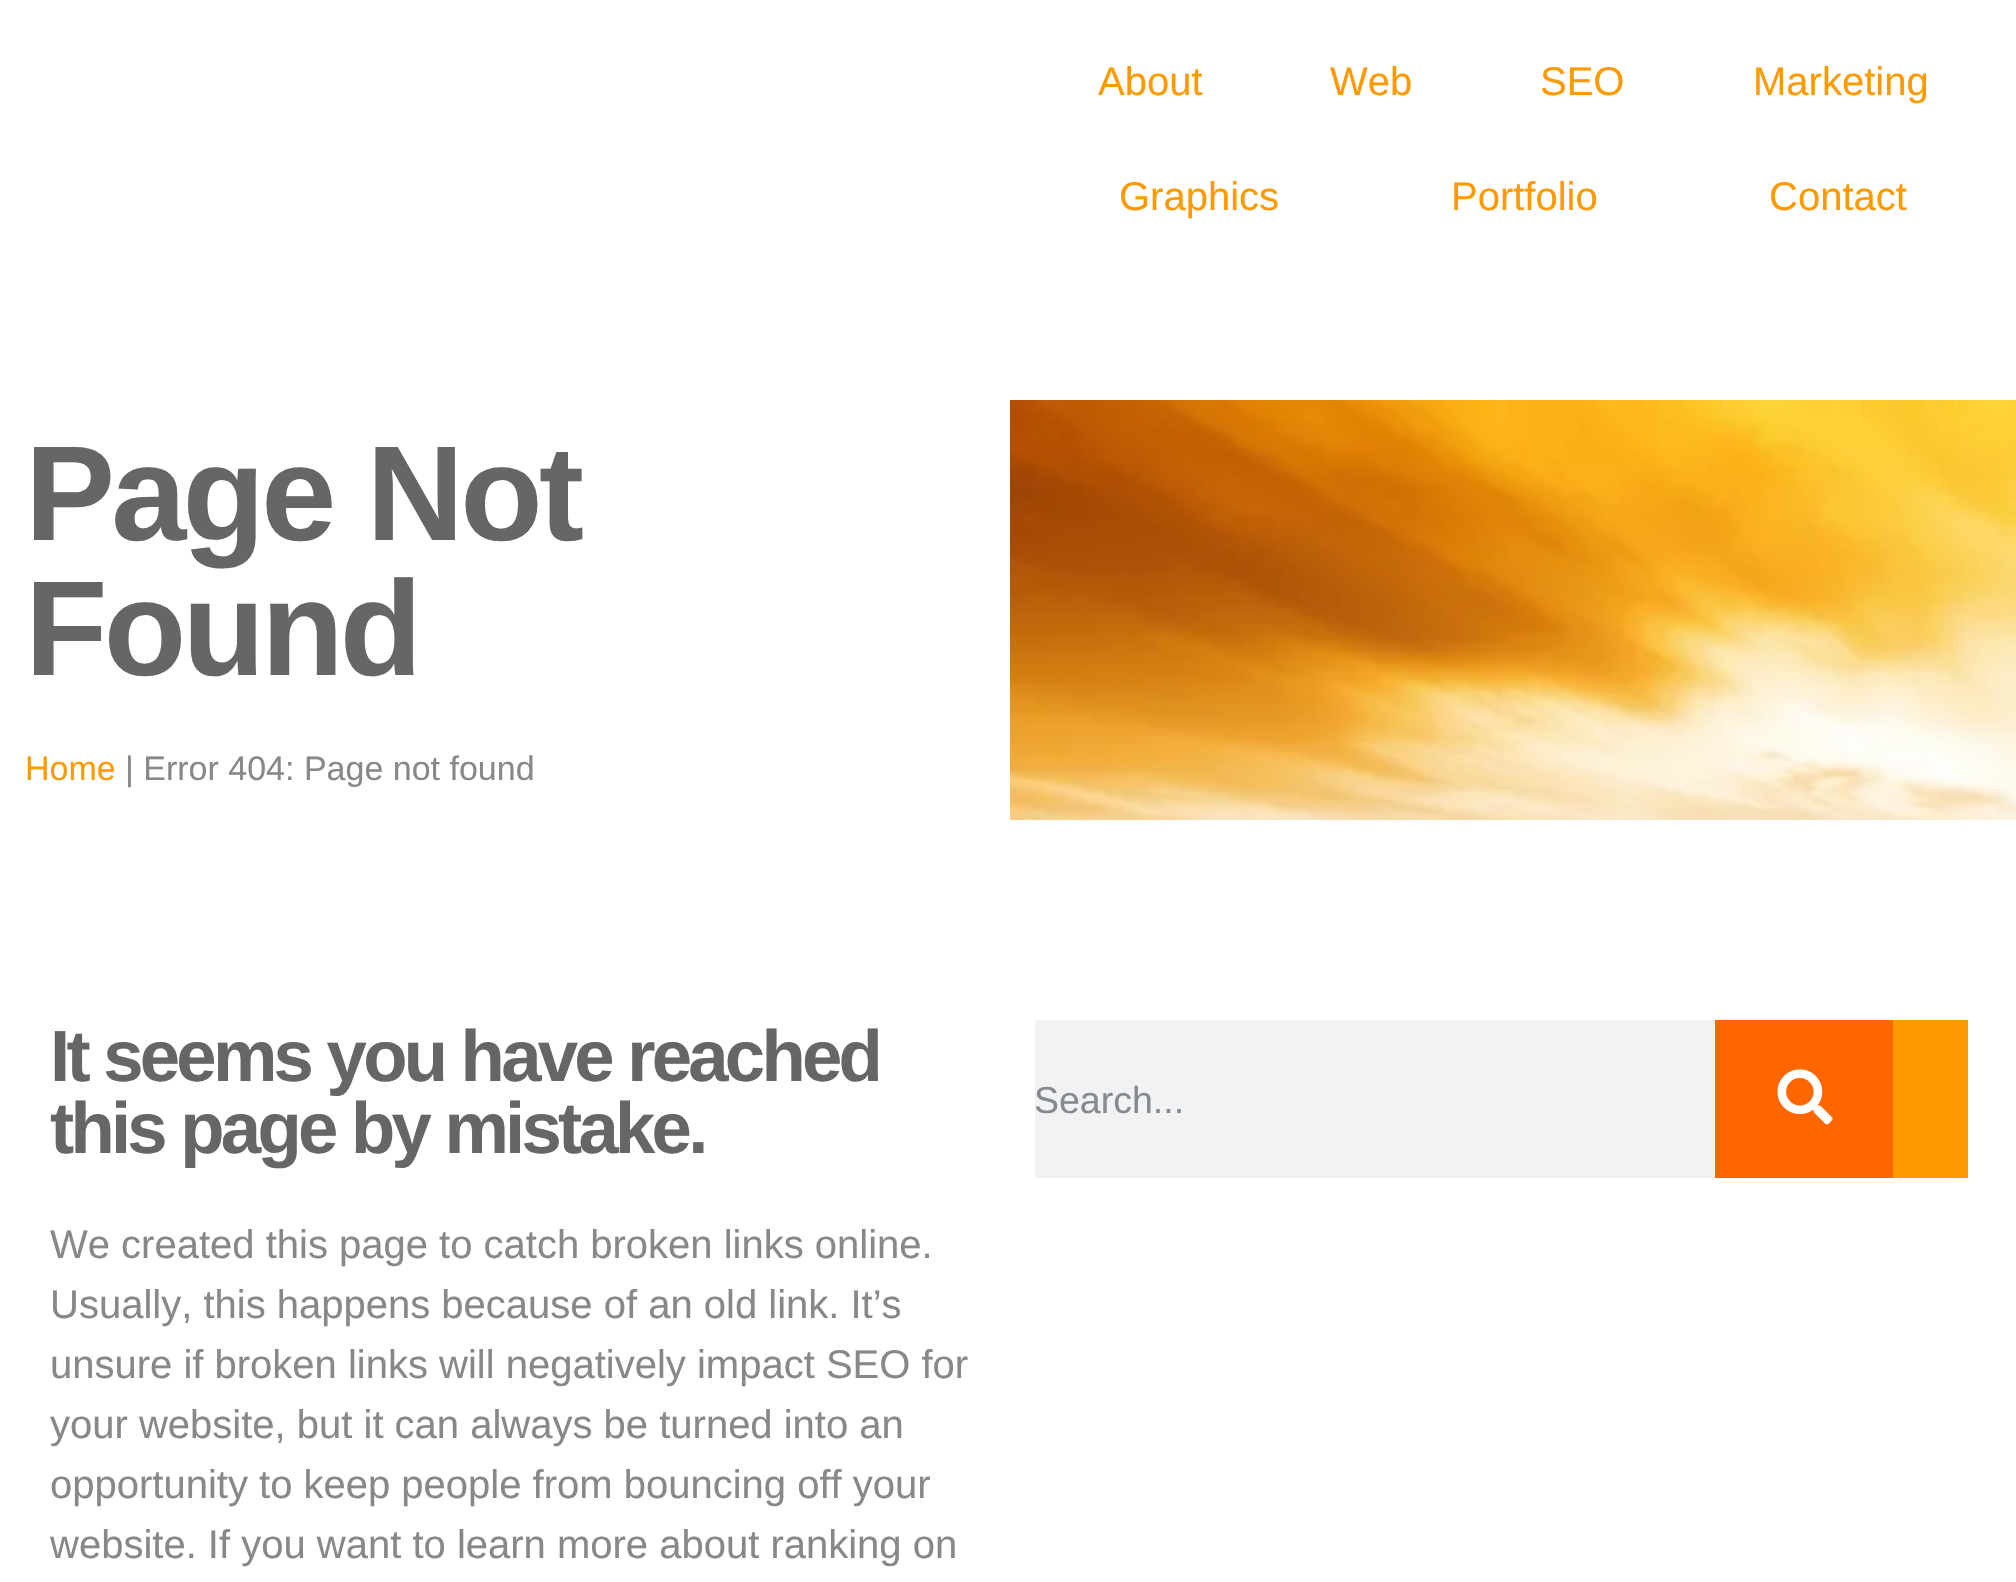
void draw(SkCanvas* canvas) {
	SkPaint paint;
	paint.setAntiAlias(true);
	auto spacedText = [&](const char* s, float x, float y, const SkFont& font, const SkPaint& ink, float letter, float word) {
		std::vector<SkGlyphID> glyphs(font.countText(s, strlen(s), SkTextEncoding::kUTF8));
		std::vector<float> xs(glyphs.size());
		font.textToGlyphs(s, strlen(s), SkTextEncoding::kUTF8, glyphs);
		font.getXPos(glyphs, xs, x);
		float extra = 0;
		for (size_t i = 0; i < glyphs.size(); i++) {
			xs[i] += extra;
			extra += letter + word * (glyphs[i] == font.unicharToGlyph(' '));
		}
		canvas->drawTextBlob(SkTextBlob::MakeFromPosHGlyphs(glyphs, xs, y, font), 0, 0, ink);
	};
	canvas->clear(0xffffffff);
	SkFont f1(fontMgr->matchFamilyStyle("Liberation Sans", SkFontStyle::Normal()), 40);
	f1.setSubpixel(true);
	paint.setColor(0xffff9900);
	canvas->drawString("About", 1098, 95, f1, paint);
	canvas->drawString("Web", 1330, 95, f1, paint);
	canvas->drawString("SEO", 1540, 95, f1, paint);
	canvas->drawString("Marketing", 1753, 95, f1, paint);
	canvas->drawString("Graphics", 1119, 210, f1, paint);
	canvas->drawString("Portfolio", 1451, 210, f1, paint);
	canvas->drawString("Contact", 1769, 210, f1, paint);
	SkFont f2(fontMgr->matchFamilyStyle("Liberation Sans", SkFontStyle::Bold()), 135);
	f2.setSubpixel(true);
	paint.setColor(0xff666666);
	spacedText("Page Not", 25, 540, f2, paint, -3.75, 0);
	spacedText("Found", 25, 675, f2, paint, -3.75, 0);
	SkFont f3(fontMgr->matchFamilyStyle("Liberation Sans", SkFontStyle::Normal()), 34);
	f3.setSubpixel(true);
	paint.setColor(0xffff9900);
	canvas->drawString("Home", 25, 780, f3, paint);
	paint.setColor(0xff888888);
	canvas->drawString("| Error 404: Page not found", 125, 780, f3, paint);
	canvas->drawImageRect(SkImages::DeferredFromEncodedData(SkData::MakeFromFileName("img1.png")), SkRect::MakeXYWH(1010, 400, 1006, 420), SkSamplingOptions());
	SkFont f4(fontMgr->matchFamilyStyle("Liberation Sans", SkFontStyle::Bold()), 72.5);
	f4.setSubpixel(true);
	paint.setColor(0xff666666);
	spacedText("It seems you have reached", 50, 1081, f4, paint, -3.75, 0);
	spacedText("this page by mistake.", 50, 1153, f4, paint, -3.75, 0);
	paint.setColor(0xff888888);
	canvas->drawString("We created this page to catch broken links online.", 50, 1258, f1, paint);
	canvas->drawString("Usually, this happens because of an old link. It’s", 50, 1318, f1, paint);
	canvas->drawString("unsure if broken links will negatively impact SEO for", 50, 1378, f1, paint);
	canvas->drawString("your website, but it can always be turned into an", 50, 1438, f1, paint);
	canvas->drawString("opportunity to keep people from bouncing off your", 50, 1498, f1, paint);
	canvas->drawString("website. If you want to learn more about ranking on", 50, 1558, f1, paint);
	paint.setColor(0xfff1f2f3);
	canvas->drawRect(SkRect::MakeXYWH(1035, 1020, 680, 158), paint);
	SkFont f5(fontMgr->matchFamilyStyle("Liberation Sans", SkFontStyle::Normal()), 37.5);
	f5.setSubpixel(true);
	paint.setColor(0xff868a8e);
	canvas->drawString("Search...", 1034, 1113, f5, paint);
	paint.setColor(0xffff6600);
	canvas->drawRect(SkRect::MakeXYWH(1715, 1020, 178, 158), paint);
	paint.setColor(0xffff9900);
	canvas->drawRect(SkRect::MakeXYWH(1893, 1020, 75, 158), paint);
	canvas->drawImageRect(SkImages::DeferredFromEncodedData(SkData::MakeFromFileName("img2.png")), SkRect::MakeXYWH(1777, 1069, 56, 56), SkSamplingOptions());
}
